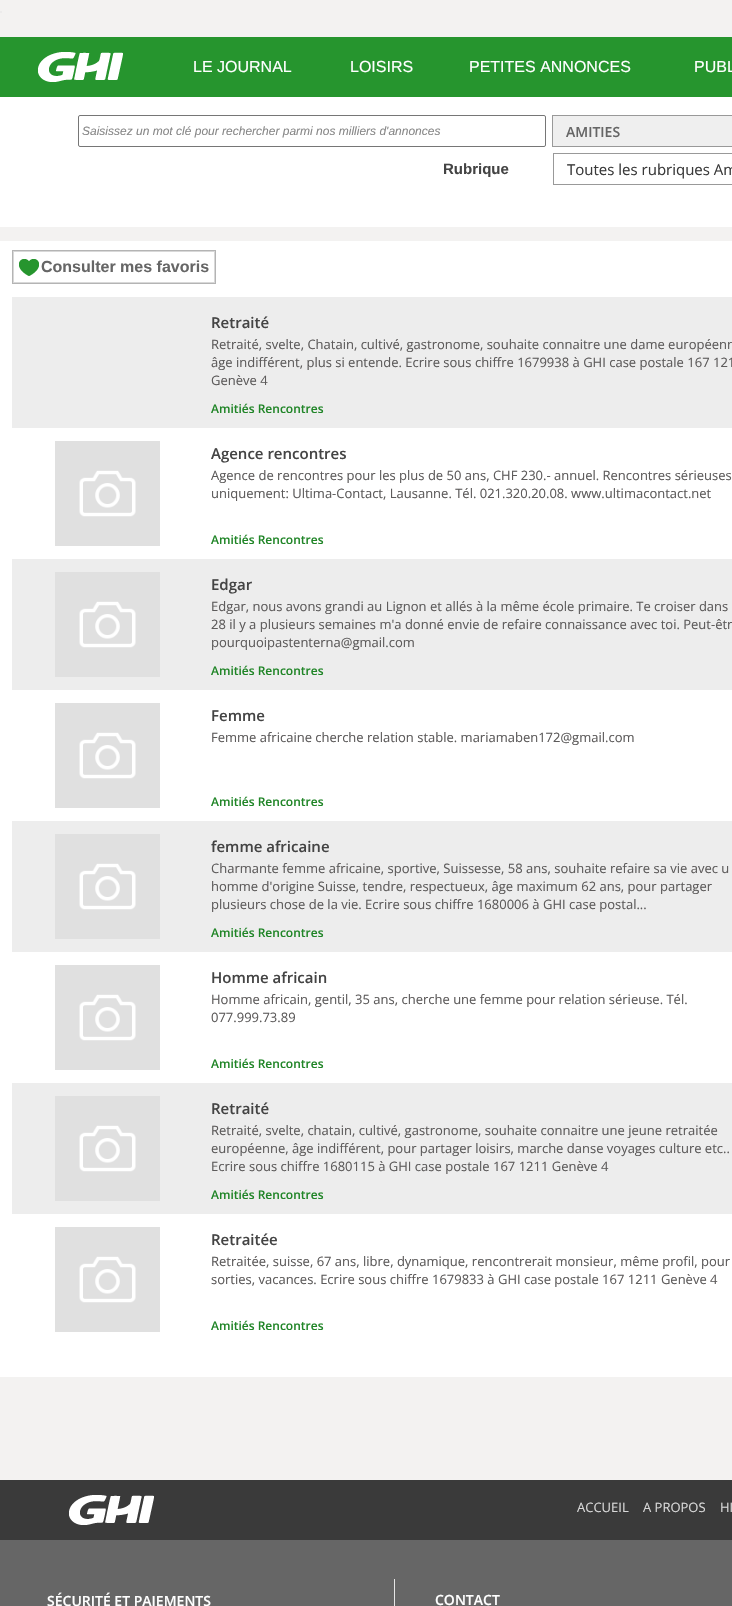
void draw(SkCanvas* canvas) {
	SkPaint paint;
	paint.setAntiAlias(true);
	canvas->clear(0xfff3f2f1);
	paint.setColor(0xffecebeb);
	canvas->drawRect(SkRect::MakeXYWH(0, 11, 2, 2), paint);
	paint.setColor(0xff26952e);
	canvas->drawRect(SkRect::MakeXYWH(0, 37, 732, 60), paint);
	canvas->drawImageRect(SkImages::DeferredFromEncodedData(SkData::MakeFromFileName("img1.png")), SkRect::MakeXYWH(38, 52, 85, 30), SkSamplingOptions());
	SkFont f1(fontMgr->matchFamilyStyle("Liberation Sans", SkFontStyle::Normal()), 16);
	f1.setSubpixel(true);
	paint.setColor(0xffffffff);
	canvas->drawString("LE JOURNAL", 193, 72, f1, paint);
	canvas->drawString("LOISIRS", 350, 72, f1, paint);
	canvas->drawString("PETITES ANNONCES", 469, 72, f1, paint);
	canvas->drawString("PUBL", 694, 72, f1, paint);
	canvas->drawRect(SkRect::MakeXYWH(0, 97, 732, 130), paint);
	paint.setStroke(true);
	paint.setStrokeWidth(1);
	paint.setColor(0xff767676);
	canvas->drawRoundRect(SkRect::MakeXYWH(78.5, 115.5, 467, 31), 1.5, 1.5, paint);
	SkFont f2(fontMgr->matchFamilyStyle("Liberation Sans", SkFontStyle::Italic()), 12);
	f2.setSubpixel(true);
	paint.setStroke(false);
	paint.setColor(0xff888888);
	canvas->drawString("Saisissez un mot clé pour rechercher parmi nos milliers d'annonces", 82, 135, f2, paint);
	paint.setColor(0xffefefef);
	canvas->drawRect(SkRect::MakeXYWH(552.5, 115.5, 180, 31), paint);
	paint.setStroke(true);
	paint.setColor(0xff999999);
	canvas->drawRect(SkRect::MakeXYWH(552.5, 115.5, 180, 31), paint);
	SkFont f3(fontMgr->matchFamilyStyle("Open Sans", SkFontStyle(600, SkFontStyle::kNormal_Width, SkFontStyle::kUpright_Slant)), 14);
	f3.setSubpixel(true);
	paint.setStroke(false);
	paint.setColor(0xff666666);
	canvas->drawString("AMITIES", 566, 137, f3, paint);
	SkFont f4(fontMgr->matchFamilyStyle("Liberation Sans", SkFontStyle::Bold()), 15);
	f4.setSubpixel(true);
	paint.setColor(0xff444444);
	canvas->drawString("Rubrique", 443, 174, f4, paint);
	paint.setStroke(true);
	paint.setColor(0xff999999);
	canvas->drawRect(SkRect::MakeXYWH(553.5, 153.5, 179, 31), paint);
	SkFont f5(fontMgr->matchFamilyStyle("Open Sans", SkFontStyle::Normal()), 15);
	f5.setSubpixel(true);
	paint.setStroke(false);
	paint.setColor(0xff3a3a3a);
	canvas->drawString("Toutes les rubriques Am", 567, 175, f5, paint);
	paint.setColor(0xffffffff);
	canvas->drawRect(SkRect::MakeXYWH(0, 241, 732, 1136), paint);
	paint.setColor(0xffb4b4b4);
	canvas->drawRect(SkRect::MakeXYWH(12, 250, 204, 1), paint);
	canvas->drawRect(SkRect::MakeXYWH(215, 250, 1, 34), paint);
	canvas->drawRect(SkRect::MakeXYWH(12, 283, 204, 1), paint);
	canvas->drawRect(SkRect::MakeXYWH(12, 250, 1, 34), paint);
	canvas->drawImageRect(SkImages::DeferredFromEncodedData(SkData::MakeFromFileName("img2.png")), SkRect::MakeXYWH(19, 259, 20, 17), SkSamplingOptions());
	paint.setStroke(true);
	paint.setColor(0xffd8d8d8);
	canvas->drawRect(SkRect::MakeXYWH(13.5, 251.5, 201, 31), paint);
	SkFont f6(fontMgr->matchFamilyStyle("Liberation Sans", SkFontStyle::Bold()), 16);
	f6.setSubpixel(true);
	paint.setStroke(false);
	paint.setColor(0xff666666);
	canvas->drawString("Consulter mes favoris", 41, 272, f6, paint);
	paint.setColor(0xffededed);
	canvas->drawRect(SkRect::MakeXYWH(12, 297, 720, 131), paint);
	SkFont f7(fontMgr->matchFamilyStyle("Open Sans", SkFontStyle(600, SkFontStyle::kNormal_Width, SkFontStyle::kUpright_Slant)), 15);
	f7.setSubpixel(true);
	paint.setColor(0xff444444);
	canvas->drawString("Retraité", 211, 328, f7, paint);
	SkFont f8(fontMgr->matchFamilyStyle("Open Sans", SkFontStyle::Normal()), 13);
	f8.setSubpixel(true);
	paint.setColor(0xff5d5b5b);
	canvas->drawString("Retraité, svelte, Chatain, cultivé, gastronome, souhaite connaitre une dame européenn", 211, 349, f8, paint);
	canvas->drawString("âge indifférent, plus si entende. Ecrire sous chiffre 1679938 à GHI case postale 167 121", 211, 367, f8, paint);
	canvas->drawString("Genève 4", 211, 385, f8, paint);
	SkFont f9(fontMgr->matchFamilyStyle("Open Sans", SkFontStyle(600, SkFontStyle::kNormal_Width, SkFontStyle::kUpright_Slant)), 12);
	f9.setSubpixel(true);
	paint.setColor(0xff208527);
	canvas->drawString("Amitiés Rencontres", 211, 413, f9, paint);
	canvas->drawImageRect(SkImages::DeferredFromEncodedData(SkData::MakeFromFileName("img3.png")), SkRect::MakeXYWH(55, 441, 105, 105), SkSamplingOptions());
	paint.setColor(0xff444444);
	canvas->drawString("Agence rencontres", 211, 459, f7, paint);
	paint.setColor(0xff5d5b5b);
	canvas->drawString("Agence de rencontres pour les plus de 50 ans, CHF 230.- annuel. Rencontres sérieuses", 211, 480, f8, paint);
	canvas->drawString("uniquement: Ultima-Contact, Lausanne. Tél. 021.320.20.08. www.ultimacontact.net", 211, 498, f8, paint);
	paint.setColor(0xff208527);
	canvas->drawString("Amitiés Rencontres", 211, 544, f9, paint);
	paint.setColor(0xffededed);
	canvas->drawRect(SkRect::MakeXYWH(12, 559, 720, 131), paint);
	canvas->drawImageRect(SkImages::DeferredFromEncodedData(SkData::MakeFromFileName("img3.png")), SkRect::MakeXYWH(55, 572, 105, 105), SkSamplingOptions());
	paint.setColor(0xff444444);
	canvas->drawString("Edgar", 211, 590, f7, paint);
	paint.setColor(0xff5d5b5b);
	canvas->drawString("Edgar, nous avons grandi au Lignon et allés à la même école primaire. Te croiser dans", 211, 611, f8, paint);
	canvas->drawString("28 il y a plusieurs semaines m'a donné envie de refaire connaissance avec toi. Peut-êtr", 211, 629, f8, paint);
	canvas->drawString("pourquoipastenterna@gmail.com", 211, 647, f8, paint);
	paint.setColor(0xff208527);
	canvas->drawString("Amitiés Rencontres", 211, 675, f9, paint);
	canvas->drawImageRect(SkImages::DeferredFromEncodedData(SkData::MakeFromFileName("img3.png")), SkRect::MakeXYWH(55, 703, 105, 105), SkSamplingOptions());
	paint.setColor(0xff444444);
	canvas->drawString("Femme", 211, 721, f7, paint);
	paint.setColor(0xff5d5b5b);
	canvas->drawString("Femme africaine cherche relation stable. mariamaben172@gmail.com", 211, 742, f8, paint);
	paint.setColor(0xff208527);
	canvas->drawString("Amitiés Rencontres", 211, 806, f9, paint);
	paint.setColor(0xffededed);
	canvas->drawRect(SkRect::MakeXYWH(12, 821, 720, 131), paint);
	canvas->drawImageRect(SkImages::DeferredFromEncodedData(SkData::MakeFromFileName("img3.png")), SkRect::MakeXYWH(55, 834, 105, 105), SkSamplingOptions());
	paint.setColor(0xff444444);
	canvas->drawString("femme africaine", 211, 852, f7, paint);
	paint.setColor(0xff5d5b5b);
	canvas->drawString("Charmante femme africaine, sportive, Suissesse, 58 ans, souhaite refaire sa vie avec u", 211, 873, f8, paint);
	canvas->drawString("homme d'origine Suisse, tendre, respectueux, âge maximum 62 ans, pour partager", 211, 891, f8, paint);
	canvas->drawString("plusieurs chose de la vie. Ecrire sous chiffre 1680006 à GHI case postal...", 211, 909, f8, paint);
	paint.setColor(0xff208527);
	canvas->drawString("Amitiés Rencontres", 211, 937, f9, paint);
	canvas->drawImageRect(SkImages::DeferredFromEncodedData(SkData::MakeFromFileName("img4.png")), SkRect::MakeXYWH(55, 965, 105, 105), SkSamplingOptions());
	paint.setColor(0xff444444);
	canvas->drawString("Homme africain", 211, 983, f7, paint);
	paint.setColor(0xff5d5b5b);
	canvas->drawString("Homme africain, gentil, 35 ans, cherche une femme pour relation sérieuse. Tél.", 211, 1004, f8, paint);
	canvas->drawString("077.999.73.89", 211, 1022, f8, paint);
	paint.setColor(0xff208527);
	canvas->drawString("Amitiés Rencontres", 211, 1068, f9, paint);
	paint.setColor(0xffededed);
	canvas->drawRect(SkRect::MakeXYWH(12, 1083, 720, 131), paint);
	canvas->drawImageRect(SkImages::DeferredFromEncodedData(SkData::MakeFromFileName("img3.png")), SkRect::MakeXYWH(55, 1096, 105, 105), SkSamplingOptions());
	paint.setColor(0xff444444);
	canvas->drawString("Retraité", 211, 1114, f7, paint);
	paint.setColor(0xff5d5b5b);
	canvas->drawString("Retraité, svelte, chatain, cultivé, gastronome, souhaite connaitre une jeune retraitée", 211, 1135, f8, paint);
	canvas->drawString("européenne, âge indifférent, pour partager loisirs, marche danse voyages culture etc..", 211, 1153, f8, paint);
	canvas->drawString("Ecrire sous chiffre 1680115 à GHI case postale 167 1211 Genève 4", 211, 1171, f8, paint);
	paint.setColor(0xff208527);
	canvas->drawString("Amitiés Rencontres", 211, 1199, f9, paint);
	canvas->drawImageRect(SkImages::DeferredFromEncodedData(SkData::MakeFromFileName("img3.png")), SkRect::MakeXYWH(55, 1227, 105, 105), SkSamplingOptions());
	paint.setColor(0xff444444);
	canvas->drawString("Retraitée", 211, 1245, f7, paint);
	paint.setColor(0xff5d5b5b);
	canvas->drawString("Retraitée, suisse, 67 ans, libre, dynamique, rencontrerait monsieur, même profil, pour", 211, 1266, f8, paint);
	canvas->drawString("sorties, vacances. Ecrire sous chiffre 1679833 à GHI case postale 167 1211 Genève 4", 211, 1284, f8, paint);
	paint.setColor(0xff208527);
	canvas->drawString("Amitiés Rencontres", 211, 1330, f9, paint);
	paint.setColor(0xff3a3a3a);
	canvas->drawRect(SkRect::MakeXYWH(0, 1480, 732, 60), paint);
	canvas->drawImageRect(SkImages::DeferredFromEncodedData(SkData::MakeFromFileName("img5.png")), SkRect::MakeXYWH(69, 1495, 85, 30), SkSamplingOptions());
	paint.setColor(0xffd8d8d8);
	canvas->drawString("ACCUEIL", 577, 1512, f8, paint);
	canvas->drawString("A PROPOS", 643, 1512, f8, paint);
	canvas->drawString("HI", 720, 1512, f8, paint);
	paint.setColor(0xff666666);
	canvas->drawRect(SkRect::MakeXYWH(0, 1540, 732, 66), paint);
	paint.setColor(0xffe6e6e6);
	canvas->drawRect(SkRect::MakeXYWH(394, 1579, 1, 27), paint);
	paint.setColor(0xffffffff);
	canvas->drawString("SÉCURITÉ ET PAIEMENTS", 47, 1606, f3, paint);
	canvas->drawString("CONTACT", 435, 1605, f3, paint);
}
